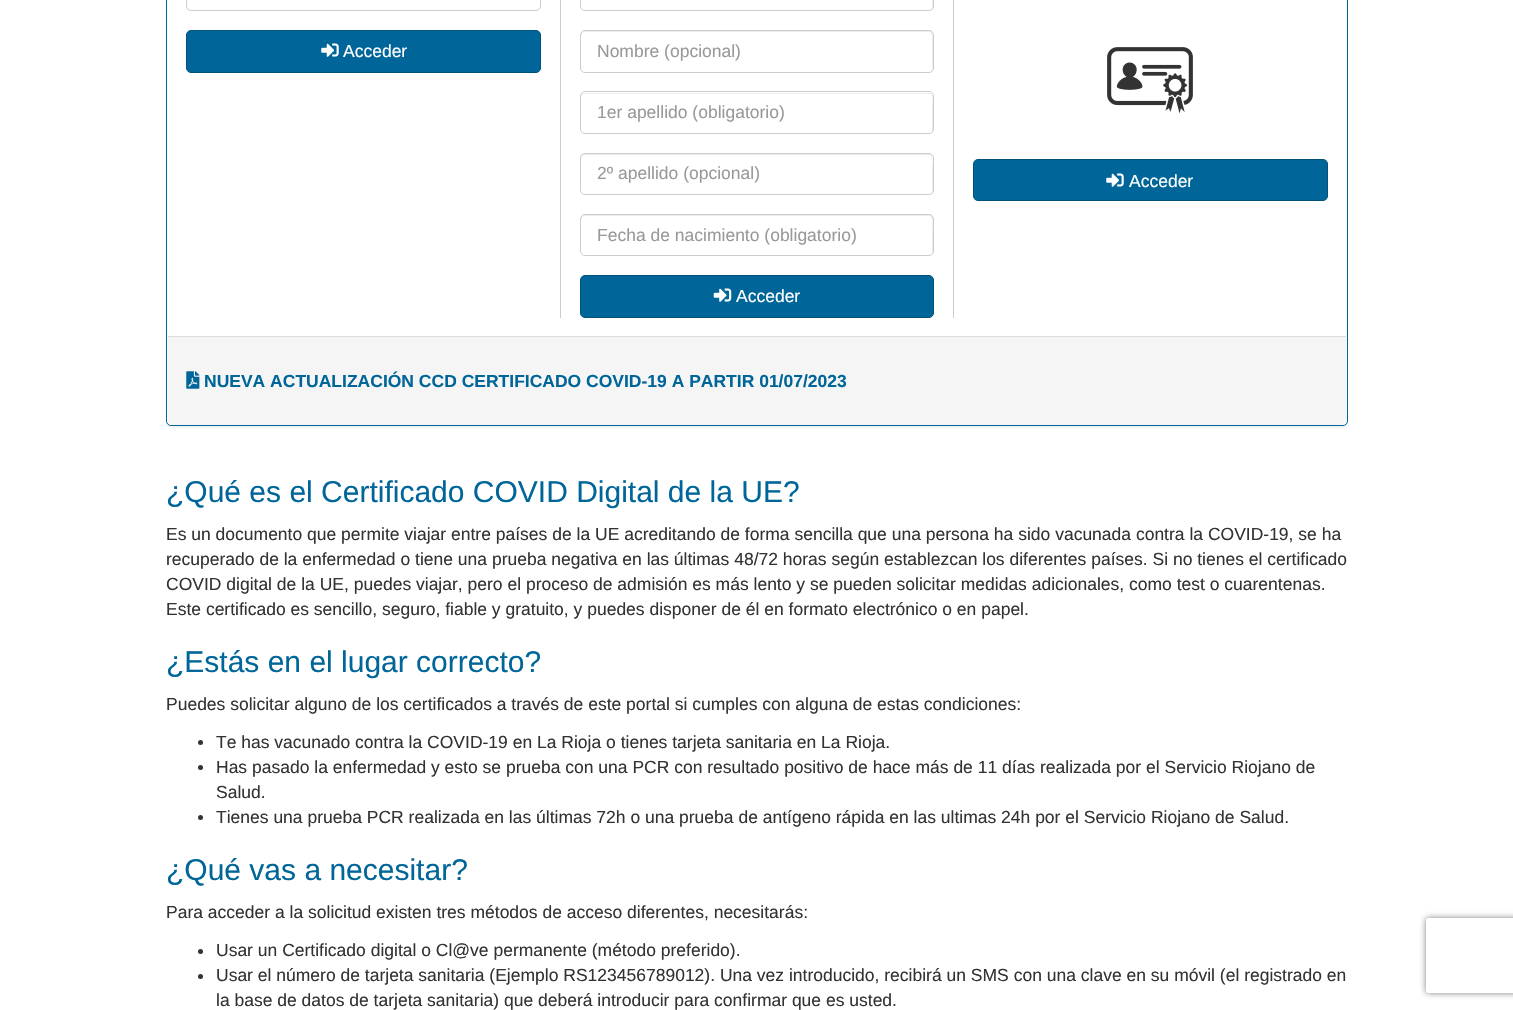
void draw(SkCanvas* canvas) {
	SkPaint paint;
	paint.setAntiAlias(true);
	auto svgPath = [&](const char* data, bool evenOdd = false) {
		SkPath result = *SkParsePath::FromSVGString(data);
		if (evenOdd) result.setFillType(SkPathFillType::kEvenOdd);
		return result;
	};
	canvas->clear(0xffffffff);
	paint.setColor(0x0d000000);
	paint.setMaskFilter(SkMaskFilter::MakeBlur(kNormal_SkBlurStyle, 0.5));
	canvas->drawRoundRect(SkRect::MakeXYWH(166, -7, 1182, 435), 5, 5, paint);
	paint.setMaskFilter(nullptr);
	paint.setColor(0xffffffff);
	canvas->drawRoundRect(SkRect::MakeXYWH(166.5, -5.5, 1181, 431), 4.5, 4.5, paint);
	paint.setStroke(true);
	paint.setStrokeWidth(1);
	paint.setColor(0xff006699);
	canvas->drawRoundRect(SkRect::MakeXYWH(166.5, -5.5, 1181, 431), 4.5, 4.5, paint);
	paint.setColor(0xffcccccc);
	canvas->drawRoundRect(SkRect::MakeXYWH(186.5, -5.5, 354, 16), 4.5, 4.5, paint);
	paint.setStroke(false);
	paint.setColor(0xff006699);
	canvas->drawRoundRect(SkRect::MakeXYWH(186.5, 30.5, 354, 42), 4.5, 4.5, paint);
	paint.setStroke(true);
	paint.setColor(0xff01527a);
	canvas->drawRoundRect(SkRect::MakeXYWH(186.5, 30.5, 354, 42), 4.5, 4.5, paint);
	canvas->drawImageRect(SkImages::DeferredFromEncodedData(SkData::MakeFromFileName("img1.png")), SkRect::MakeXYWH(321, 43, 18, 14), SkSamplingOptions());
	SkFont f1(fontMgr->matchFamilyStyle("Liberation Sans", SkFontStyle::Normal()), 17.5);
	f1.setSubpixel(true);
	paint.setStroke(false);
	paint.setColor(0xffffffff);
	canvas->drawString("Acceder", 343, 57, f1, paint);
	paint.setColor(0xffcccccc);
	canvas->drawRect(SkRect::MakeXYWH(953, 0, 1, 318), paint);
	canvas->drawRect(SkRect::MakeXYWH(560, 0, 1, 318), paint);
	paint.setColor(0xffececec);
	canvas->drawPath(svgPath("M585-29H929C931-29 932-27 932-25V9C933 8 933 7 933 6V-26C933-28 931-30 929-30H585C583-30 581-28 581-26V-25C581-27 583-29 585-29Z"), paint);
	paint.setStroke(true);
	paint.setColor(0xffcccccc);
	canvas->drawRoundRect(SkRect::MakeXYWH(580.5, -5.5, 353, 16), 4.5, 4.5, paint);
	paint.setStroke(false);
	paint.setColor(0xffececec);
	canvas->drawPath(svgPath("M585 32H929C931 32 932 34 932 36V70C933 69 933 68 933 67V35C933 33 931 31 929 31H585C583 31 581 33 581 35V36C581 34 583 32 585 32Z"), paint);
	paint.setStroke(true);
	paint.setColor(0xffcccccc);
	canvas->drawRoundRect(SkRect::MakeXYWH(580.5, 30.5, 353, 42), 4.5, 4.5, paint);
	paint.setStroke(false);
	paint.setColor(0xff999999);
	canvas->drawString("Nombre (opcional)", 597, 57, f1, paint);
	paint.setColor(0xffececec);
	canvas->drawPath(svgPath("M585 94H929C931 94 932 95 932 98V132L933 130C934 127 933 96 932 95L930 93H585C582 93 581 95 581 98C581 95 583 94 585 94Z"), paint);
	paint.setStroke(true);
	paint.setColor(0xffcccccc);
	canvas->drawRoundRect(SkRect::MakeXYWH(580.5, 91.5, 353, 42), 4.5, 4.5, paint);
	paint.setStroke(false);
	paint.setColor(0xff999999);
	canvas->drawString("1er apellido (obligatorio)", 597, 118, f1, paint);
	paint.setColor(0xffececec);
	canvas->drawPath(svgPath("M585 155H929C934 155 932 168 932 170V193L933 191C934 188 933 157 932 156L930 154H585C582 154 581 156 581 159C581 157 583 155 585 155Z"), paint);
	paint.setStroke(true);
	paint.setColor(0xffcccccc);
	canvas->drawRoundRect(SkRect::MakeXYWH(580.5, 153.5, 353, 41), 4.5, 4.5, paint);
	paint.setStroke(false);
	paint.setColor(0xff999999);
	canvas->drawString("2º apellido (opcional)", 597, 179, f1, paint);
	paint.setColor(0xffececec);
	canvas->drawPath(svgPath("M585 216H929C934 216 932 229 932 231V254C933 253 933 252 933 251V219C933 217 931 215 929 215H585C583 215 581 217 581 219V220C581 218 583 216 585 216Z"), paint);
	paint.setStroke(true);
	paint.setColor(0xffcccccc);
	canvas->drawRoundRect(SkRect::MakeXYWH(580.5, 214.5, 353, 41), 4.5, 4.5, paint);
	paint.setStroke(false);
	paint.setColor(0xff999999);
	canvas->drawString("Fecha de nacimiento (obligatorio)", 597, 241, f1, paint);
	paint.setColor(0xff006699);
	canvas->drawRoundRect(SkRect::MakeXYWH(580.5, 275.5, 353, 42), 4.5, 4.5, paint);
	paint.setStroke(true);
	paint.setColor(0xff01527a);
	canvas->drawRoundRect(SkRect::MakeXYWH(580.5, 275.5, 353, 42), 4.5, 4.5, paint);
	canvas->drawImageRect(SkImages::DeferredFromEncodedData(SkData::MakeFromFileName("img2.png")), SkRect::MakeXYWH(713, 288, 19, 14), SkSamplingOptions());
	paint.setStroke(false);
	paint.setColor(0xffffffff);
	canvas->drawString("Acceder", 736, 302, f1, paint);
	canvas->drawImageRect(SkImages::DeferredFromEncodedData(SkData::MakeFromFileName("img3.png")), SkRect::MakeXYWH(1107, 47, 86, 67), SkSamplingOptions());
	paint.setColor(0xff006699);
	canvas->drawRoundRect(SkRect::MakeXYWH(973.5, 159.5, 354, 41), 4.5, 4.5, paint);
	paint.setStroke(true);
	paint.setColor(0xff01527a);
	canvas->drawRoundRect(SkRect::MakeXYWH(973.5, 159.5, 354, 41), 4.5, 4.5, paint);
	canvas->drawImageRect(SkImages::DeferredFromEncodedData(SkData::MakeFromFileName("img1.png")), SkRect::MakeXYWH(1106, 173, 18, 14), SkSamplingOptions());
	paint.setStroke(false);
	paint.setColor(0xffffffff);
	canvas->drawString("Acceder", 1129, 187, f1, paint);
	paint.setColor(0xfff5f5f5);
	canvas->drawPath(svgPath("M168 336H1346V421C1346 423 1344 425 1342 425H172C170 425 168 423 168 421Z"), paint);
	paint.setColor(0xffdddddd);
	canvas->drawRect(SkRect::MakeXYWH(168, 336, 1178, 1), paint);
	canvas->drawImageRect(SkImages::DeferredFromEncodedData(SkData::MakeFromFileName("img4.png")), SkRect::MakeXYWH(186, 371, 14, 18), SkSamplingOptions());
	SkFont f2(fontMgr->matchFamilyStyle("Liberation Sans", SkFontStyle::Bold()), 17.5);
	f2.setSubpixel(true);
	paint.setColor(0xff006699);
	canvas->drawString("NUEVA ACTUALIZACIÓN CCD CERTIFICADO COVID-19 A PARTIR 01/07/2023", 204, 387, f2, paint);
	SkFont f3(fontMgr->matchFamilyStyle("Liberation Sans", SkFontStyle::Normal()), 30);
	f3.setSubpixel(true);
	canvas->drawString("¿Qué es el Certificado COVID Digital de la UE?", 166, 502, f3, paint);
	paint.setColor(0xff333333);
	canvas->drawString("Es un documento que permite viajar entre países de la UE acreditando de forma sencilla que una persona ha sido vacunada contra la COVID-19, se ha", 166, 540, f1, paint);
	canvas->drawString("recuperado de la enfermedad o tiene una prueba negativa en las últimas 48/72 horas según establezcan los diferentes países. Si no tienes el certificado", 166, 565, f1, paint);
	canvas->drawString("COVID digital de la UE, puedes viajar, pero el proceso de admisión es más lento y se pueden solicitar medidas adicionales, como test o cuarentenas.", 166, 590, f1, paint);
	canvas->drawString("Este certificado es sencillo, seguro, fiable y gratuito, y puedes disponer de él en formato electrónico o en papel.", 166, 615, f1, paint);
	paint.setColor(0xff006699);
	canvas->drawString("¿Estás en el lugar correcto?", 166, 672, f3, paint);
	paint.setColor(0xff333333);
	canvas->drawString("Puedes solicitar alguno de los certificados a través de este portal si cumples con alguna de estas condiciones:", 166, 710, f1, paint);
	canvas->drawCircle(200.5, 742.5, 2.5, paint);
	canvas->drawString("Te has vacunado contra la COVID-19 en La Rioja o tienes tarjeta sanitaria en La Rioja.", 216, 748, f1, paint);
	canvas->drawCircle(200.5, 767.5, 2.5, paint);
	canvas->drawString("Has pasado la enfermedad y esto se prueba con una PCR con resultado positivo de hace más de 11 días realizada por el Servicio Riojano de", 216, 773, f1, paint);
	canvas->drawString("Salud.", 216, 798, f1, paint);
	canvas->drawCircle(200.5, 817.5, 2.5, paint);
	canvas->drawString("Tienes una prueba PCR realizada en las últimas 72h o una prueba de antígeno rápida en las ultimas 24h por el Servicio Riojano de Salud.", 216, 823, f1, paint);
	paint.setColor(0xff006699);
	canvas->drawString("¿Qué vas a necesitar?", 166, 880, f3, paint);
	paint.setColor(0xff333333);
	canvas->drawString("Para acceder a la solicitud existen tres métodos de acceso diferentes, necesitarás:", 166, 918, f1, paint);
	canvas->drawCircle(200.5, 951.5, 2.5, paint);
	canvas->drawString("Usar un Certificado digital o Cl@ve permanente (método preferido).", 216, 956, f1, paint);
	canvas->drawCircle(200.5, 976.5, 2.5, paint);
	canvas->drawString("Usar el número de tarjeta sanitaria (Ejemplo RS123456789012). Una vez introducido, recibirá un SMS con una clave en su móvil (el registrado en", 216, 981, f1, paint);
	canvas->drawString("la base de datos de tarjeta sanitaria) que deberá introducir para confirmar que es usted.", 216, 1006, f1, paint);
	canvas->save();
	canvas->clipPath(svgPath("M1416 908H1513V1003H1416ZM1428.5 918H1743.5C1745 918 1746 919 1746 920.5V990.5C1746 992 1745 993 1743.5 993H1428.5C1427 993 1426 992 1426 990.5V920.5C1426 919 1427 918 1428.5 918Z", true), true);
	paint.setColor(0xff808080);
	paint.setMaskFilter(SkMaskFilter::MakeBlur(kNormal_SkBlurStyle, 3));
	canvas->drawRoundRect(SkRect::MakeXYWH(1426, 918, 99, 75), 2.5, 2.5, paint);
	paint.setMaskFilter(nullptr);
	canvas->restore();
}
